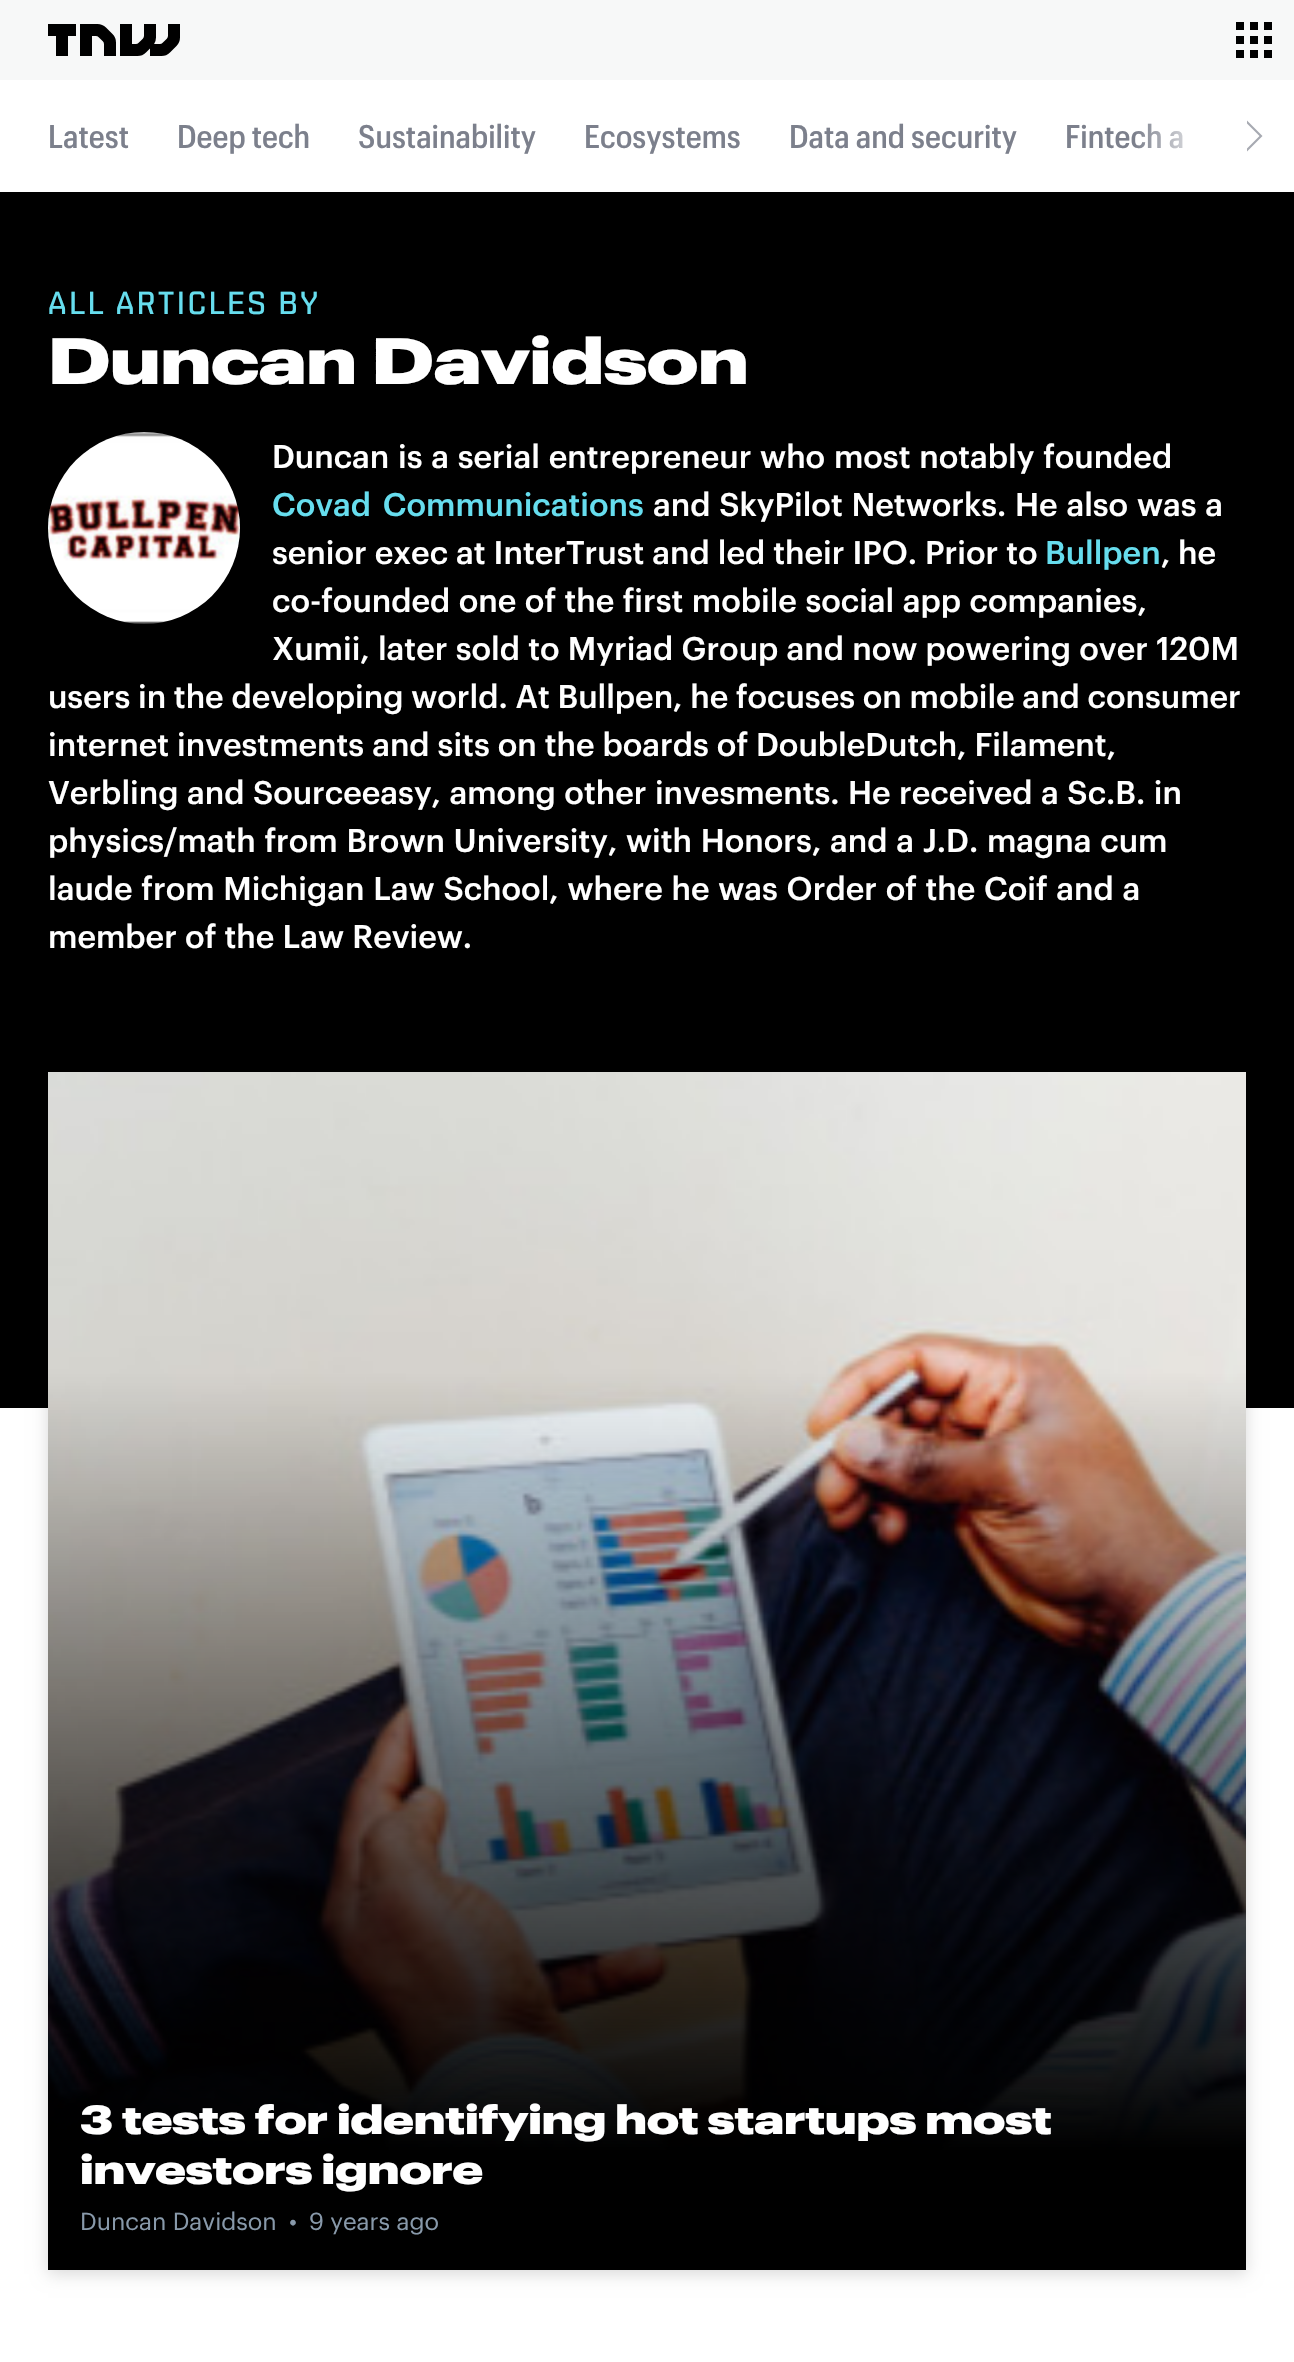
void draw(SkCanvas* canvas) {
	SkPaint paint;
	paint.setAntiAlias(true);
	auto spacedText = [&](const char* s, float x, float y, const SkFont& font, const SkPaint& ink, float letter, float word) {
		std::vector<SkGlyphID> glyphs(font.countText(s, strlen(s), SkTextEncoding::kUTF8));
		std::vector<float> xs(glyphs.size());
		font.textToGlyphs(s, strlen(s), SkTextEncoding::kUTF8, glyphs);
		font.getXPos(glyphs, xs, x);
		float extra = 0;
		for (size_t i = 0; i < glyphs.size(); i++) {
			xs[i] += extra;
			extra += letter + word * (glyphs[i] == font.unicharToGlyph(' '));
		}
		canvas->drawTextBlob(SkTextBlob::MakeFromPosHGlyphs(glyphs, xs, y, font), 0, 0, ink);
	};
	auto svgPath = [&](const char* data, bool evenOdd = false) {
		SkPath result = *SkParsePath::FromSVGString(data);
		if (evenOdd) result.setFillType(SkPathFillType::kEvenOdd);
		return result;
	};
	canvas->clear(0xffffffff);
	paint.setColor(0xfff7f8f8);
	canvas->drawRect(SkRect::MakeXYWH(0, 0, 1294, 80), paint);
	canvas->drawImageRect(SkImages::DeferredFromEncodedData(SkData::MakeFromFileName("img1.png")), SkRect::MakeXYWH(1236, 22, 36, 36), SkSamplingOptions());
	canvas->drawImageRect(SkImages::DeferredFromEncodedData(SkData::MakeFromFileName("img2.png")), SkRect::MakeXYWH(48, 24, 132, 32), SkSamplingOptions());
	SkFont f1(fontMgr->matchFamilyStyle("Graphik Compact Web", SkFontStyle(500, SkFontStyle::kNormal_Width, SkFontStyle::kUpright_Slant)), 32);
	f1.setSubpixel(true);
	paint.setColor(0xff7c808c);
	canvas->drawString("Latest", 48, 148, f1, paint);
	canvas->drawString("Deep tech", 177, 148, f1, paint);
	canvas->drawString("Sustainability", 358, 148, f1, paint);
	canvas->drawString("Ecosystems", 584, 148, f1, paint);
	canvas->drawString("Data and security", 789, 148, f1, paint);
	canvas->drawString("Fintech a", 1065, 148, f1, paint);
	{
		const SkColor colors[] = {0x00ffffff, 0xffffffff};
		const float stops[] = {0, 0.5};
		const SkPoint ends[] = {{1134, 136}, {1294, 136}};
		paint.setShader(SkGradientShader::MakeLinear(ends, colors, stops, 2, SkTileMode::kClamp));
		paint.setAlpha(255);
	}
	canvas->drawRect(SkRect::MakeXYWH(1136, 123, 47, 26), paint);
	paint.setShader(nullptr);
	paint.setColor(0xffa7aab2);
	canvas->drawPath(svgPath("M1247 120.5L1262.5 136H1259.5L1247 123.5ZM1262.5 136L1247 151.5V148.5L1259.5 136Z"), paint);
	paint.setColor(0xff000000);
	canvas->drawRect(SkRect::MakeXYWH(0, 192, 1294, 1216), paint);
	SkFont f2(fontMgr->matchFamilyStyle("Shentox", SkFontStyle(500, SkFontStyle::kNormal_Width, SkFontStyle::kUpright_Slant)), 32);
	f2.setSubpixel(true);
	paint.setColor(0xff66ddee);
	spacedText("ALL ARTICLES BY", 48, 314, f2, paint, 2.5, 0);
	SkFont f3(fontMgr->matchFamilyStyle("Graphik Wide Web", SkFontStyle(800, SkFontStyle::kNormal_Width, SkFontStyle::kUpright_Slant)), 64);
	f3.setSubpixel(true);
	paint.setColor(0xffffffff);
	canvas->drawString("Duncan Davidson", 48, 384, f3, paint);
	canvas->drawImageRect(SkImages::DeferredFromEncodedData(SkData::MakeFromFileName("img3.png")), SkRect::MakeXYWH(48, 432, 192, 192), SkSamplingOptions());
	SkFont f4(fontMgr->matchFamilyStyle("Graphik", SkFontStyle(500, SkFontStyle::kNormal_Width, SkFontStyle::kUpright_Slant)), 32);
	f4.setSubpixel(true);
	spacedText("Duncan is a serial entrepreneur who most notably founded", 272, 468, f4, paint, 0, 1);
	paint.setColor(0xff66ddee);
	spacedText("Covad Communications", 272, 516, f4, paint, 0, 4);
	paint.setColor(0xffffffff);
	spacedText("and SkyPilot Networks. He also was a", 653, 516, f4, paint, 0, 1);
	spacedText("senior exec at InterTrust and led their IPO. Prior to", 272, 564, f4, paint, 0, 0.25);
	paint.setColor(0xff66ddee);
	canvas->drawString("Bullpen", 1045, 564, f4, paint);
	paint.setColor(0xffffffff);
	canvas->drawString(", he", 1161, 564, f4, paint);
	spacedText("co-founded one of the first mobile social app companies,", 272, 612, f4, paint, 0, 0.75);
	spacedText("Xumii, later sold to Myriad Group and now powering over 120M", 272, 660, f4, paint, 0, 0.5);
	canvas->drawString("users in the developing world. At Bullpen, he focuses on mobile and consumer", 48, 708, f4, paint);
	spacedText("internet investments and sits on the boards of DoubleDutch, Filament,", 48, 756, f4, paint, 0, 0.25);
	spacedText("Verbling and Sourceeasy, among other invesments. He received a Sc.B. in", 48, 804, f4, paint, 0, 0.75);
	spacedText("physics/math from Brown University, with Honors, and a J.D. magna cum", 48, 852, f4, paint, 0, 1);
	spacedText("laude from Michigan Law School, where he was Order of the Coif and a", 48, 900, f4, paint, 0, 1);
	spacedText("member of the Law Review.", 48, 948, f4, paint, 0, 0.5);
	paint.setColor(0x26000000);
	paint.setMaskFilter(SkMaskFilter::MakeBlur(kNormal_SkBlurStyle, 8));
	canvas->drawRect(SkRect::MakeXYWH(48, 1076, 1198, 1198), paint);
	paint.setMaskFilter(nullptr);
	canvas->drawImageRect(SkImages::DeferredFromEncodedData(SkData::MakeFromFileName("img4.png")), SkRect::MakeXYWH(48, 1072, 1198, 1198), SkSamplingOptions());
	SkFont f5(fontMgr->matchFamilyStyle("Graphik Wide Web", SkFontStyle(800, SkFontStyle::kNormal_Width, SkFontStyle::kUpright_Slant)), 40);
	f5.setSubpixel(true);
	paint.setColor(0xffffffff);
	spacedText("3 tests for identifying hot startups most", 80, 2134, f5, paint, -0.05, 0);
	spacedText("investors ignore", 80, 2184, f5, paint, -0.05, 0);
	SkFont f6(fontMgr->matchFamilyStyle("Graphik", SkFontStyle::Normal()), 24);
	f6.setSubpixel(true);
	paint.setColor(0xff8899aa);
	canvas->drawString("Duncan Davidson", 80, 2230, f6, paint);
	canvas->drawString("•", 289, 2230, f6, paint);
	canvas->drawString("9 years ago", 309, 2230, f6, paint);
}
